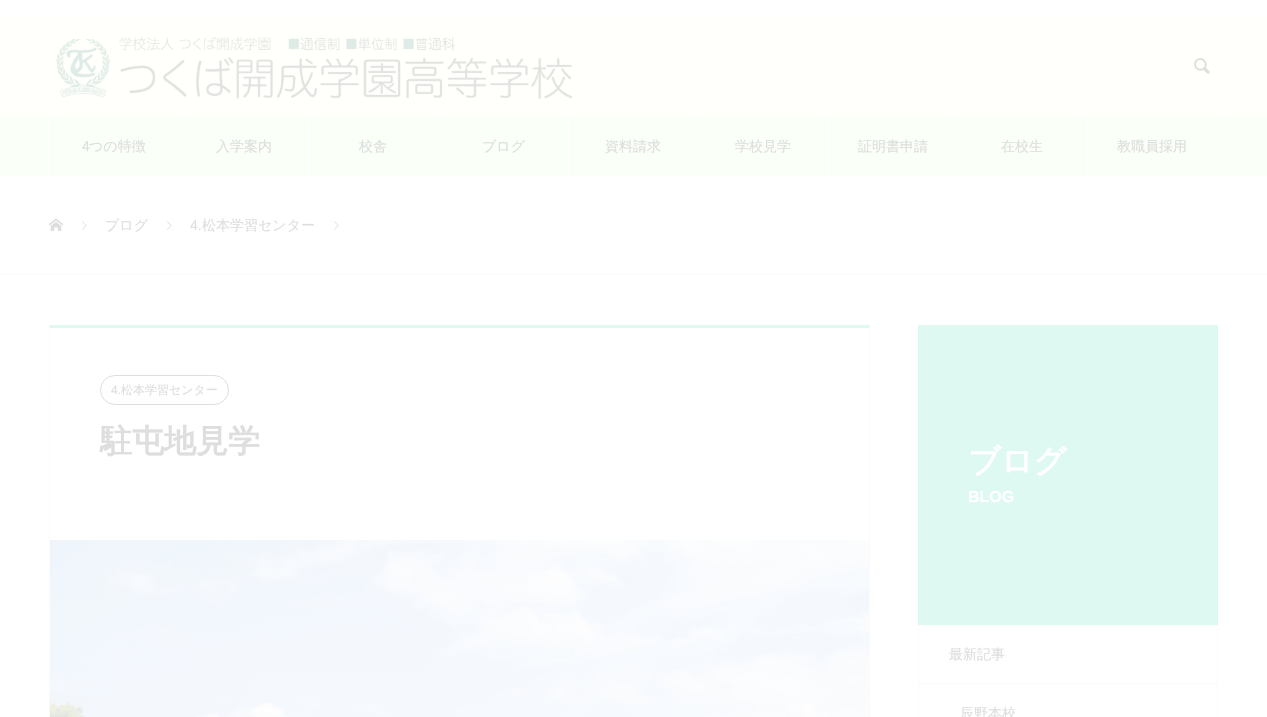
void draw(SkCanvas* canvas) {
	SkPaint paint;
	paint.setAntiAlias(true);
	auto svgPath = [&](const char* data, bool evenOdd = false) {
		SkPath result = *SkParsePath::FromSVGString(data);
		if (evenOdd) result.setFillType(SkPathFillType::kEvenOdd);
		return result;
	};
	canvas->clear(0xffffffff);
	paint.setColor(0xfffffffb);
	canvas->drawRect(SkRect::MakeXYWH(0, 16, 1267, 100), paint);
	canvas->drawImageRect(SkImages::DeferredFromEncodedData(SkData::MakeFromFileName("img1.png")), SkRect::MakeXYWH(56, 37, 517, 62), SkSamplingOptions());
	canvas->drawImageRect(SkImages::DeferredFromEncodedData(SkData::MakeFromFileName("img2.png")), SkRect::MakeXYWH(1194, 58, 16, 16), SkSamplingOptions());
	paint.setColor(0xfffafff8);
	canvas->drawRect(SkRect::MakeXYWH(0, 116, 1267, 60), paint);
	paint.setColor(0xffffffff);
	canvas->drawRect(SkRect::MakeXYWH(178, 116, 1, 60), paint);
	canvas->drawRect(SkRect::MakeXYWH(48, 116, 1, 60), paint);
	SkFont f1(fontMgr->matchFamilyStyle("Liberation Sans", SkFontStyle::Normal()), 14);
	f1.setSubpixel(true);
	paint.setColor(0xffdedede);
	canvas->drawString("4", 82, 151, f1, paint);
	SkFont f2(fontMgr->matchFamilyStyle("WenQuanYi Zen Hei", SkFontStyle(500, SkFontStyle::kNormal_Width, SkFontStyle::kUpright_Slant)), 14);
	f2.setSubpixel(true);
	canvas->drawString("つの特徴", 89, 151, f2, paint);
	paint.setColor(0xffffffff);
	canvas->drawRect(SkRect::MakeXYWH(308, 116, 1, 60), paint);
	paint.setColor(0xffdedede);
	canvas->drawString("入学案内", 216, 151, f2, paint);
	paint.setColor(0xffffffff);
	canvas->drawRect(SkRect::MakeXYWH(438, 116, 1, 60), paint);
	paint.setColor(0xffdedede);
	canvas->drawString("校舎", 359, 151, f2, paint);
	canvas->drawString("ブログ", 482, 151, f2, paint);
	paint.setColor(0xffffffff);
	canvas->drawRect(SkRect::MakeXYWH(697, 116, 1, 60), paint);
	canvas->drawRect(SkRect::MakeXYWH(568, 116, 1, 60), paint);
	paint.setColor(0xffdedede);
	canvas->drawString("資料請求", 605, 151, f2, paint);
	paint.setColor(0xffffffff);
	canvas->drawRect(SkRect::MakeXYWH(827, 116, 1, 60), paint);
	paint.setColor(0xffdedede);
	canvas->drawString("学校見学", 735, 151, f2, paint);
	paint.setColor(0xffffffff);
	canvas->drawRect(SkRect::MakeXYWH(957, 116, 1, 60), paint);
	paint.setColor(0xffdedede);
	canvas->drawString("証明書申請", 858, 151, f2, paint);
	paint.setColor(0xffffffff);
	canvas->drawRect(SkRect::MakeXYWH(1087, 116, 1, 60), paint);
	paint.setColor(0xffdedede);
	canvas->drawString("在校生", 1001, 151, f2, paint);
	paint.setColor(0xffffffff);
	canvas->drawRect(SkRect::MakeXYWH(1217, 116, 1, 60), paint);
	paint.setColor(0xffdedede);
	canvas->drawString("教職員採用", 1117, 151, f2, paint);
	canvas->drawImageRect(SkImages::DeferredFromEncodedData(SkData::MakeFromFileName("img3.png")), SkRect::MakeXYWH(49, 218, 14, 13), SkSamplingOptions());
	canvas->drawImageRect(SkImages::DeferredFromEncodedData(SkData::MakeFromFileName("img4.png")), SkRect::MakeXYWH(82, 221, 5, 9), SkSamplingOptions());
	canvas->drawString("ブログ", 105, 230, f2, paint);
	canvas->drawImageRect(SkImages::DeferredFromEncodedData(SkData::MakeFromFileName("img4.png")), SkRect::MakeXYWH(167, 221, 5, 9), SkSamplingOptions());
	canvas->drawString("4.", 190, 230, f1, paint);
	canvas->drawString("松本学習センター", 202, 230, f2, paint);
	canvas->drawImageRect(SkImages::DeferredFromEncodedData(SkData::MakeFromFileName("img4.png")), SkRect::MakeXYWH(334, 221, 5, 9), SkSamplingOptions());
	paint.setColor(0xfffbfbfb);
	canvas->drawRect(SkRect::MakeXYWH(0, 274, 1267, 1), paint);
	paint.setColor(0xffdef9f1);
	canvas->drawPath(svgPath("M49 325H870L869 328H50Z"), paint);
	paint.setColor(0xfffbfbfb);
	canvas->drawPath(svgPath("M870 325V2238L869 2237V328Z"), paint);
	canvas->drawPath(svgPath("M49 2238V325L50 328V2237Z"), paint);
	paint.setStroke(true);
	paint.setStrokeWidth(1);
	paint.setColor(0xffdedede);
	canvas->drawRoundRect(SkRect::MakeXYWH(100.5, 375.5, 128, 29), 14.5, 14.5, paint);
	SkFont f3(fontMgr->matchFamilyStyle("Liberation Sans", SkFontStyle::Normal()), 12);
	f3.setSubpixel(true);
	paint.setStroke(false);
	canvas->drawString("4.", 111, 394, f3, paint);
	SkFont f4(fontMgr->matchFamilyStyle("WenQuanYi Zen Hei", SkFontStyle(500, SkFontStyle::kNormal_Width, SkFontStyle::kUpright_Slant)), 12);
	f4.setSubpixel(true);
	canvas->drawString("松本学習センター", 121, 394, f4, paint);
	SkFont f5(fontMgr->matchFamilyStyle("WenQuanYi Zen Hei", SkFontStyle::Bold()), 32);
	f5.setSubpixel(true);
	canvas->drawString("駐屯地見学", 100, 452, f5, paint);
	canvas->drawImageRect(SkImages::DeferredFromEncodedData(SkData::MakeFromFileName("img5.png")), SkRect::MakeXYWH(50, 540, 819, 177), SkSamplingOptions());
	paint.setColor(0xffdef9f1);
	canvas->drawRect(SkRect::MakeXYWH(918, 325, 300, 300), paint);
	paint.setColor(0xffffffff);
	canvas->drawString("ブログ", 968, 472, f5, paint);
	SkFont f6(fontMgr->matchFamilyStyle("Liberation Sans", SkFontStyle::Bold()), 16);
	f6.setSubpixel(true);
	canvas->drawString("BLOG", 968, 502, f6, paint);
	canvas->save();
	canvas->clipRect(SkRect::MakeXYWH(918, 625, 300, 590));
	paint.setStroke(true);
	paint.setColor(0xfffbfbfb);
	canvas->drawRect(SkRect::MakeXYWH(918.5, 624.5, 299, 59), paint);
	canvas->restore();
	paint.setStroke(false);
	paint.setColor(0xffdedede);
	canvas->drawString("最新記事", 949, 659, f2, paint);
	paint.setStroke(true);
	paint.setColor(0xfffbfbfb);
	canvas->drawRect(SkRect::MakeXYWH(918.5, 683.5, 299, 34), paint);
	paint.setStroke(false);
	paint.setColor(0xffdedede);
	canvas->drawString("辰野本校", 960, 718, f2, paint);
}
